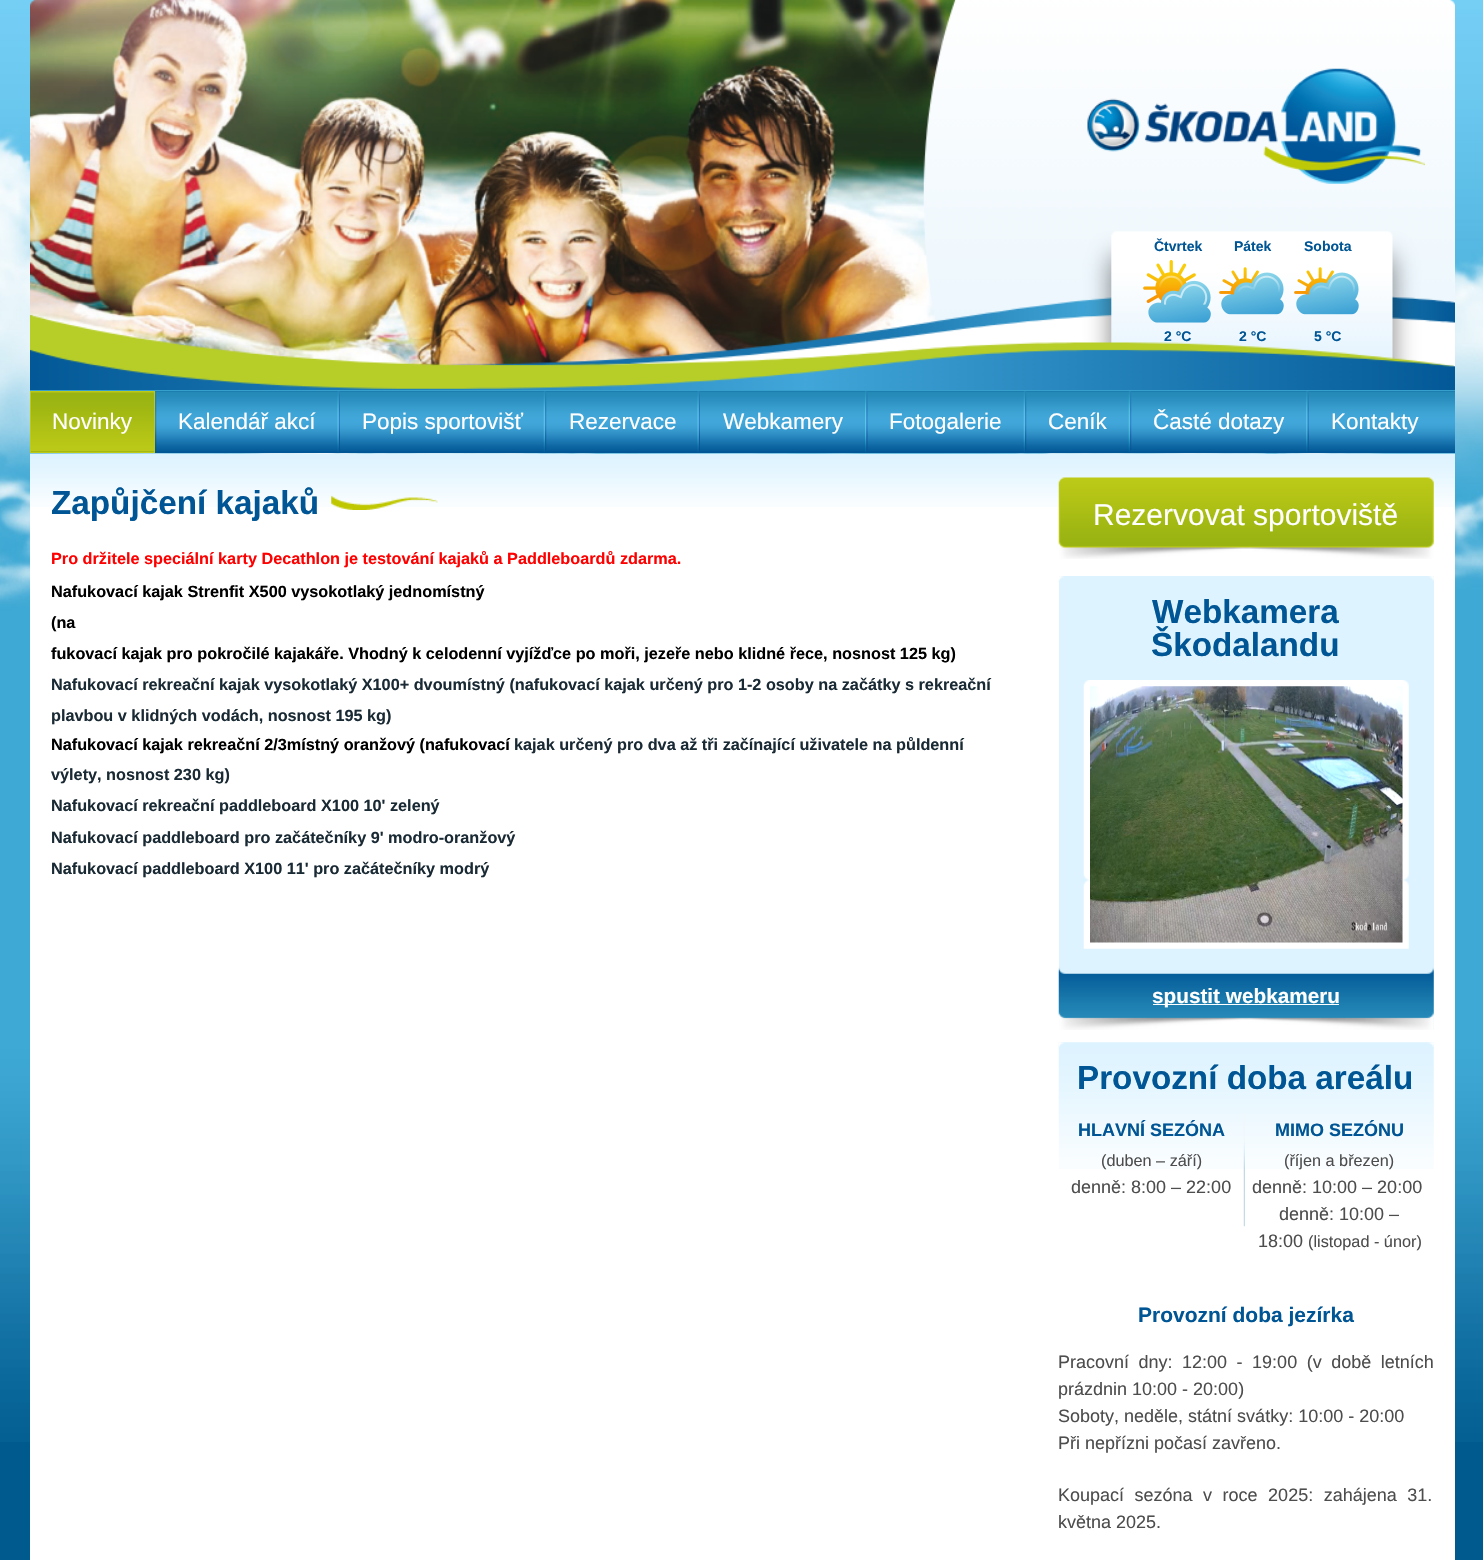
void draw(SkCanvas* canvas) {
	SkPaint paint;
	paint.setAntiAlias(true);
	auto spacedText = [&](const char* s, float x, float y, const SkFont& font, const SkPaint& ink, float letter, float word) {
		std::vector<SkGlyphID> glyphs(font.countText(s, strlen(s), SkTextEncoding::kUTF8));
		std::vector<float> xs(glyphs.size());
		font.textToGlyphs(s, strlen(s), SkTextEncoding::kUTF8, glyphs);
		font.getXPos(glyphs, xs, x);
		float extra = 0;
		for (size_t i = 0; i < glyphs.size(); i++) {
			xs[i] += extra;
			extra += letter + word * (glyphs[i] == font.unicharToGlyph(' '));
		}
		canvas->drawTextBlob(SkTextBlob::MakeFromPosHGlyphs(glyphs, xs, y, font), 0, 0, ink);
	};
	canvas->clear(0xff005a8e);
	canvas->drawImageRect(SkImages::DeferredFromEncodedData(SkData::MakeFromFileName("img1.png")), SkRect::MakeXYWH(0, 640, 1483, 802), SkSamplingOptions());
	canvas->drawImageRect(SkImages::DeferredFromEncodedData(SkData::MakeFromFileName("img2.png")), SkRect::MakeXYWH(0, 0, 1483, 640), SkSamplingOptions());
	canvas->drawImageRect(SkImages::DeferredFromEncodedData(SkData::MakeFromFileName("img3.png")), SkRect::MakeXYWH(30, 0, 1425, 390), SkSamplingOptions());
	canvas->drawImageRect(SkImages::DeferredFromEncodedData(SkData::MakeFromFileName("img4.png")), SkRect::MakeXYWH(1087, 68, 338, 116), SkSamplingOptions());
	SkFont f1(fontMgr->matchFamilyStyle("Liberation Sans", SkFontStyle::Bold()), 14);
	f1.setSubpixel(true);
	paint.setColor(0xff005594);
	canvas->drawString("Čtvrtek", 1154, 251, f1, paint);
	canvas->drawImageRect(SkImages::DeferredFromEncodedData(SkData::MakeFromFileName("img5.png")), SkRect::MakeXYWH(1143, 260, 68, 63), SkSamplingOptions());
	canvas->drawString("2 °C", 1164, 341, f1, paint);
	canvas->drawString("Pátek", 1234, 251, f1, paint);
	canvas->drawImageRect(SkImages::DeferredFromEncodedData(SkData::MakeFromFileName("img6.png")), SkRect::MakeXYWH(1219, 267, 65, 48), SkSamplingOptions());
	canvas->drawString("2 °C", 1239, 341, f1, paint);
	canvas->drawString("Sobota", 1304, 251, f1, paint);
	canvas->drawImageRect(SkImages::DeferredFromEncodedData(SkData::MakeFromFileName("img7.png")), SkRect::MakeXYWH(1294, 267, 65, 48), SkSamplingOptions());
	canvas->drawString("5 °C", 1314, 341, f1, paint);
	paint.setColor(0xff015796);
	canvas->drawRect(SkRect::MakeXYWH(155, 391, 1300, 62), paint);
	canvas->drawImageRect(SkImages::DeferredFromEncodedData(SkData::MakeFromFileName("img8.png")), SkRect::MakeXYWH(155, 391, 1300, 60), SkSamplingOptions());
	paint.setColor(0xff369fcc);
	canvas->drawRect(SkRect::MakeXYWH(30, 390, 1425, 1), paint);
	canvas->drawImageRect(SkImages::DeferredFromEncodedData(SkData::MakeFromFileName("img9.png")), SkRect::MakeXYWH(155, 391, 2, 61), SkSamplingOptions());
	canvas->drawImageRect(SkImages::DeferredFromEncodedData(SkData::MakeFromFileName("img10.png")), SkRect::MakeXYWH(31, 392, 123, 60), SkSamplingOptions());
	paint.setStroke(true);
	paint.setStrokeWidth(1);
	paint.setColor(0xffbcc917);
	canvas->drawRect(SkRect::MakeXYWH(30.5, 391.5, 124, 61), paint);
	SkFont f2(fontMgr->matchFamilyStyle("Liberation Sans", SkFontStyle::Normal()), 22.5);
	f2.setSubpixel(true);
	paint.setStroke(false);
	paint.setColor(0xffffffff);
	canvas->drawString("Novinky", 52, 429, f2, paint);
	canvas->drawImageRect(SkImages::DeferredFromEncodedData(SkData::MakeFromFileName("img11.png")), SkRect::MakeXYWH(337, 391, 3, 61), SkSamplingOptions());
	canvas->drawString("Kalendář akcí", 178, 429, f2, paint);
	canvas->drawImageRect(SkImages::DeferredFromEncodedData(SkData::MakeFromFileName("img12.png")), SkRect::MakeXYWH(543, 391, 4, 61), SkSamplingOptions());
	canvas->drawString("Popis sportovišť", 362, 429, f2, paint);
	canvas->drawImageRect(SkImages::DeferredFromEncodedData(SkData::MakeFromFileName("img11.png")), SkRect::MakeXYWH(697, 391, 3, 61), SkSamplingOptions());
	canvas->drawString("Rezervace", 569, 429, f2, paint);
	canvas->drawImageRect(SkImages::DeferredFromEncodedData(SkData::MakeFromFileName("img13.png")), SkRect::MakeXYWH(865, 391, 3, 61), SkSamplingOptions());
	canvas->drawString("Webkamery", 723, 429, f2, paint);
	canvas->drawImageRect(SkImages::DeferredFromEncodedData(SkData::MakeFromFileName("img12.png")), SkRect::MakeXYWH(1023, 391, 4, 61), SkSamplingOptions());
	canvas->drawString("Fotogalerie", 889, 429, f2, paint);
	canvas->drawImageRect(SkImages::DeferredFromEncodedData(SkData::MakeFromFileName("img12.png")), SkRect::MakeXYWH(1128, 391, 4, 61), SkSamplingOptions());
	canvas->drawString("Ceník", 1048, 429, f2, paint);
	canvas->drawImageRect(SkImages::DeferredFromEncodedData(SkData::MakeFromFileName("img14.png")), SkRect::MakeXYWH(1306, 391, 3, 61), SkSamplingOptions());
	canvas->drawString("Časté dotazy", 1153, 429, f2, paint);
	canvas->drawString("Kontakty", 1331, 429, f2, paint);
	canvas->drawRect(SkRect::MakeXYWH(30, 507, 1425, 1053), paint);
	canvas->drawImageRect(SkImages::DeferredFromEncodedData(SkData::MakeFromFileName("img15.png")), SkRect::MakeXYWH(30, 453, 1425, 54), SkSamplingOptions());
	SkFont f3(fontMgr->matchFamilyStyle("Liberation Sans", SkFontStyle::Bold()), 33.25);
	f3.setSubpixel(true);
	paint.setColor(0xff005594);
	canvas->drawString("Zapůjčení kajaků", 51, 514, f3, paint);
	canvas->drawImageRect(SkImages::DeferredFromEncodedData(SkData::MakeFromFileName("img16.png")), SkRect::MakeXYWH(331, 495, 107, 15), SkSamplingOptions());
	SkFont f4(fontMgr->matchFamilyStyle("Liberation Sans", SkFontStyle::Bold()), 16.25);
	f4.setSubpixel(true);
	paint.setColor(0xffff0000);
	canvas->drawString("Pro držitele speciální karty Decathlon je testování kajaků a Paddleboardů zdarma.", 51, 564, f4, paint);
	paint.setColor(0xff000000);
	canvas->drawString("Nafukovací kajak Strenfit X500 vysokotlaký jednomístný", 51, 597, f4, paint);
	canvas->drawString("(na", 51, 628, f4, paint);
	canvas->drawString("fukovací kajak pro pokročilé kajakáře. Vhodný k celodenní vyjížďce po moři, jezeře nebo klidné řece, nosnost 125 kg)", 51, 659, f4, paint);
	paint.setColor(0xff1a2a34);
	canvas->drawString("Nafukovací rekreační kajak vysokotlaký X100+ dvoumístný (nafukovací kajak určený pro 1-2 osoby na začátky s rekreační", 51, 690, f4, paint);
	canvas->drawString("plavbou v klidných vodách, nosnost 195 kg)", 51, 721, f4, paint);
	paint.setColor(0xff000000);
	canvas->drawString("Nafukovací kajak rekreační 2/3místný oranžový (nafukovací", 51, 750, f4, paint);
	paint.setColor(0xff1a2a34);
	canvas->drawString("kajak určený pro dva až tři začínající uživatele na půldenní", 514, 750, f4, paint);
	canvas->drawString("výlety, nosnost 230 kg)", 51, 780, f4, paint);
	canvas->drawString("Nafukovací rekreační paddleboard X100 10' zelený", 51, 811, f4, paint);
	canvas->drawString("Nafukovací paddleboard pro začátečníky 9' modro-oranžový", 51, 843, f4, paint);
	canvas->drawString("Nafukovací paddleboard X100 11' pro začátečníky modrý", 51, 874, f4, paint);
	canvas->drawImageRect(SkImages::DeferredFromEncodedData(SkData::MakeFromFileName("img17.png")), SkRect::MakeXYWH(1058, 477, 376, 82), SkSamplingOptions());
	SkFont f5(fontMgr->matchFamilyStyle("Liberation Sans", SkFontStyle::Normal()), 30);
	f5.setSubpixel(true);
	paint.setColor(0xffffffff);
	canvas->drawString("Rezervovat sportoviště", 1093, 525, f5, paint);
	paint.setColor(0xffddf3ff);
	canvas->drawRect(SkRect::MakeXYWH(1059, 576, 375, 454), paint);
	canvas->drawImageRect(SkImages::DeferredFromEncodedData(SkData::MakeFromFileName("img18.png")), SkRect::MakeXYWH(1058, 576, 376, 7), SkSamplingOptions());
	paint.setColor(0xff005594);
	canvas->drawString("Webkamera", 1152, 623, f3, paint);
	canvas->drawString("Škodalandu", 1151, 656, f3, paint);
	canvas->drawImageRect(SkImages::DeferredFromEncodedData(SkData::MakeFromFileName("img19.png")), SkRect::MakeXYWH(1083, 680, 326, 269), SkSamplingOptions());
	canvas->drawImageRect(SkImages::DeferredFromEncodedData(SkData::MakeFromFileName("img20.png")), SkRect::MakeXYWH(1090, 686, 313, 257), SkSamplingOptions());
	canvas->drawImageRect(SkImages::DeferredFromEncodedData(SkData::MakeFromFileName("img21.png")), SkRect::MakeXYWH(1058, 967, 376, 63), SkSamplingOptions());
	paint.setColor(0xffffffff);
	canvas->drawRect(SkRect::MakeXYWH(1153, 1004, 186, 1), paint);
	SkFont f6(fontMgr->matchFamilyStyle("Liberation Sans", SkFontStyle::Bold()), 20.75);
	f6.setSubpixel(true);
	canvas->drawString("spustit webkameru", 1152, 1003, f6, paint);
	canvas->drawImageRect(SkImages::DeferredFromEncodedData(SkData::MakeFromFileName("img22.png")), SkRect::MakeXYWH(1058, 1042, 376, 127), SkSamplingOptions());
	canvas->drawImageRect(SkImages::DeferredFromEncodedData(SkData::MakeFromFileName("img23.png")), SkRect::MakeXYWH(1058, 1042, 376, 7), SkSamplingOptions());
	paint.setColor(0xff005594);
	canvas->drawString("Provozní doba areálu", 1077, 1089, f3, paint);
	canvas->drawImageRect(SkImages::DeferredFromEncodedData(SkData::MakeFromFileName("img24.png")), SkRect::MakeXYWH(1243, 1113, 2, 114), SkSamplingOptions());
	SkFont f7(fontMgr->matchFamilyStyle("Liberation Sans", SkFontStyle::Bold()), 18);
	f7.setSubpixel(true);
	canvas->drawString("HLAVNÍ SEZÓNA", 1078, 1136, f7, paint);
	SkFont f8(fontMgr->matchFamilyStyle("Liberation Sans", SkFontStyle::Normal()), 16.25);
	f8.setSubpixel(true);
	paint.setColor(0xff4d4d4d);
	canvas->drawString("(duben – září)", 1101, 1166, f8, paint);
	SkFont f9(fontMgr->matchFamilyStyle("Liberation Sans", SkFontStyle::Normal()), 18);
	f9.setSubpixel(true);
	canvas->drawString("denně: 8:00 – 22:00", 1071, 1193, f9, paint);
	paint.setColor(0xff005594);
	canvas->drawString("MIMO SEZÓNU", 1275, 1136, f7, paint);
	paint.setColor(0xff4d4d4d);
	canvas->drawString("(říjen a březen)", 1284, 1166, f8, paint);
	canvas->drawString("denně: 10:00 – 20:00", 1252, 1193, f9, paint);
	canvas->drawString("denně: 10:00 –", 1279, 1220, f9, paint);
	canvas->drawString("18:00", 1258, 1247, f9, paint);
	canvas->drawString("(listopad - únor)", 1308, 1247, f8, paint);
	SkFont f10(fontMgr->matchFamilyStyle("Liberation Sans", SkFontStyle::Bold()), 21);
	f10.setSubpixel(true);
	paint.setColor(0xff005594);
	canvas->drawString("Provozní doba jezírka", 1138, 1322, f10, paint);
	paint.setColor(0xff4d4d4d);
	spacedText("Pracovní dny: 12:00 - 19:00 (v době letních", 1058, 1368, f9, paint, 0, 4.5);
	canvas->drawString("prázdnin 10:00 - 20:00)", 1058, 1395, f9, paint);
	canvas->drawString("Soboty, neděle, státní svátky: 10:00 - 20:00", 1058, 1422, f9, paint);
	canvas->drawString("Při nepřízni počasí zavřeno.", 1058, 1449, f9, paint);
	spacedText("Koupací sezóna v roce 2025: zahájena 31.", 1058, 1501, f9, paint, 0, 5.5);
	canvas->drawString("května 2025.", 1058, 1528, f9, paint);
}
